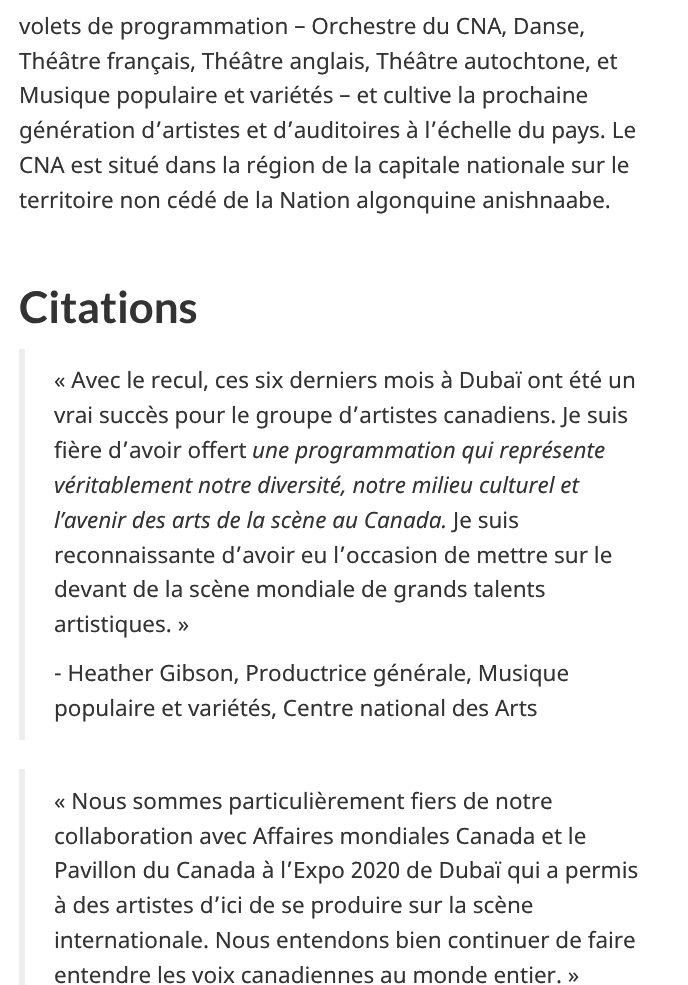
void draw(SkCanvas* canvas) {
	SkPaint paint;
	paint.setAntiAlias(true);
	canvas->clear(0xffffffff);
	SkFont f1(fontMgr->matchFamilyStyle("Noto Sans", SkFontStyle::Normal()), 22.5);
	f1.setSubpixel(true);
	paint.setColor(0xff333333);
	canvas->drawString("volets de programmation – Orchestre du CNA, Danse,", 19, 34, f1, paint);
	canvas->drawString("Théâtre français, Théâtre anglais, Théâtre autochtone, et", 19, 69, f1, paint);
	canvas->drawString("Musique populaire et variétés – et cultive la prochaine", 19, 103, f1, paint);
	canvas->drawString("génération d’artistes et d’auditoires à l’échelle du pays. Le", 19, 138, f1, paint);
	canvas->drawString("CNA est situé dans la région de la capitale nationale sur le", 19, 173, f1, paint);
	canvas->drawString("territoire non cédé de la Nation algonquine anishnaabe.", 19, 208, f1, paint);
	SkFont f2(fontMgr->matchFamilyStyle("Lato", SkFontStyle::Bold()), 43.75);
	f2.setSubpixel(true);
	canvas->drawString("Citations", 19, 323, f2, paint);
	paint.setColor(0xffeeeeee);
	canvas->drawRect(SkRect::MakeXYWH(19, 349, 6, 391), paint);
	paint.setColor(0xff333333);
	canvas->drawString("« Avec le recul, ces six derniers mois à Dubaï ont été un", 54, 388, f1, paint);
	canvas->drawString("vrai succès pour le groupe d’artistes canadiens. Je suis", 54, 423, f1, paint);
	canvas->drawString("fière d’avoir offert", 54, 458, f1, paint);
	SkFont f3(fontMgr->matchFamilyStyle("Noto Sans", SkFontStyle::Italic()), 22.5);
	f3.setSubpixel(true);
	canvas->drawString("une programmation qui représente", 252, 458, f3, paint);
	canvas->drawString("véritablement notre diversité, notre milieu culturel et", 54, 493, f3, paint);
	canvas->drawString("l’avenir des arts de la scène au Canada.", 54, 528, f3, paint);
	canvas->drawString("Je suis", 453, 528, f1, paint);
	canvas->drawString("reconnaissante d’avoir eu l’occasion de mettre sur le", 54, 563, f1, paint);
	canvas->drawString("devant de la scène mondiale de grands talents", 54, 597, f1, paint);
	canvas->drawString("artistiques. »", 54, 632, f1, paint);
	canvas->drawString("- Heather Gibson, Productrice générale, Musique", 54, 681, f1, paint);
	canvas->drawString("populaire et variétés, Centre national des Arts", 54, 716, f1, paint);
	paint.setColor(0xffeeeeee);
	canvas->drawRect(SkRect::MakeXYWH(19, 769, 6, 216), paint);
	paint.setColor(0xff333333);
	canvas->drawString("« Nous sommes particulièrement fiers de notre", 54, 809, f1, paint);
	canvas->drawString("collaboration avec Affaires mondiales Canada et le", 54, 844, f1, paint);
	canvas->drawString("Pavillon du Canada à l’Expo 2020 de Dubaï qui a permis", 54, 878, f1, paint);
	canvas->drawString("à des artistes d’ici de se produire sur la scène", 54, 913, f1, paint);
	canvas->drawString("internationale. Nous entendons bien continuer de faire", 54, 948, f1, paint);
	canvas->drawString("entendre les voix canadiennes au monde entier. »", 54, 983, f1, paint);
}
